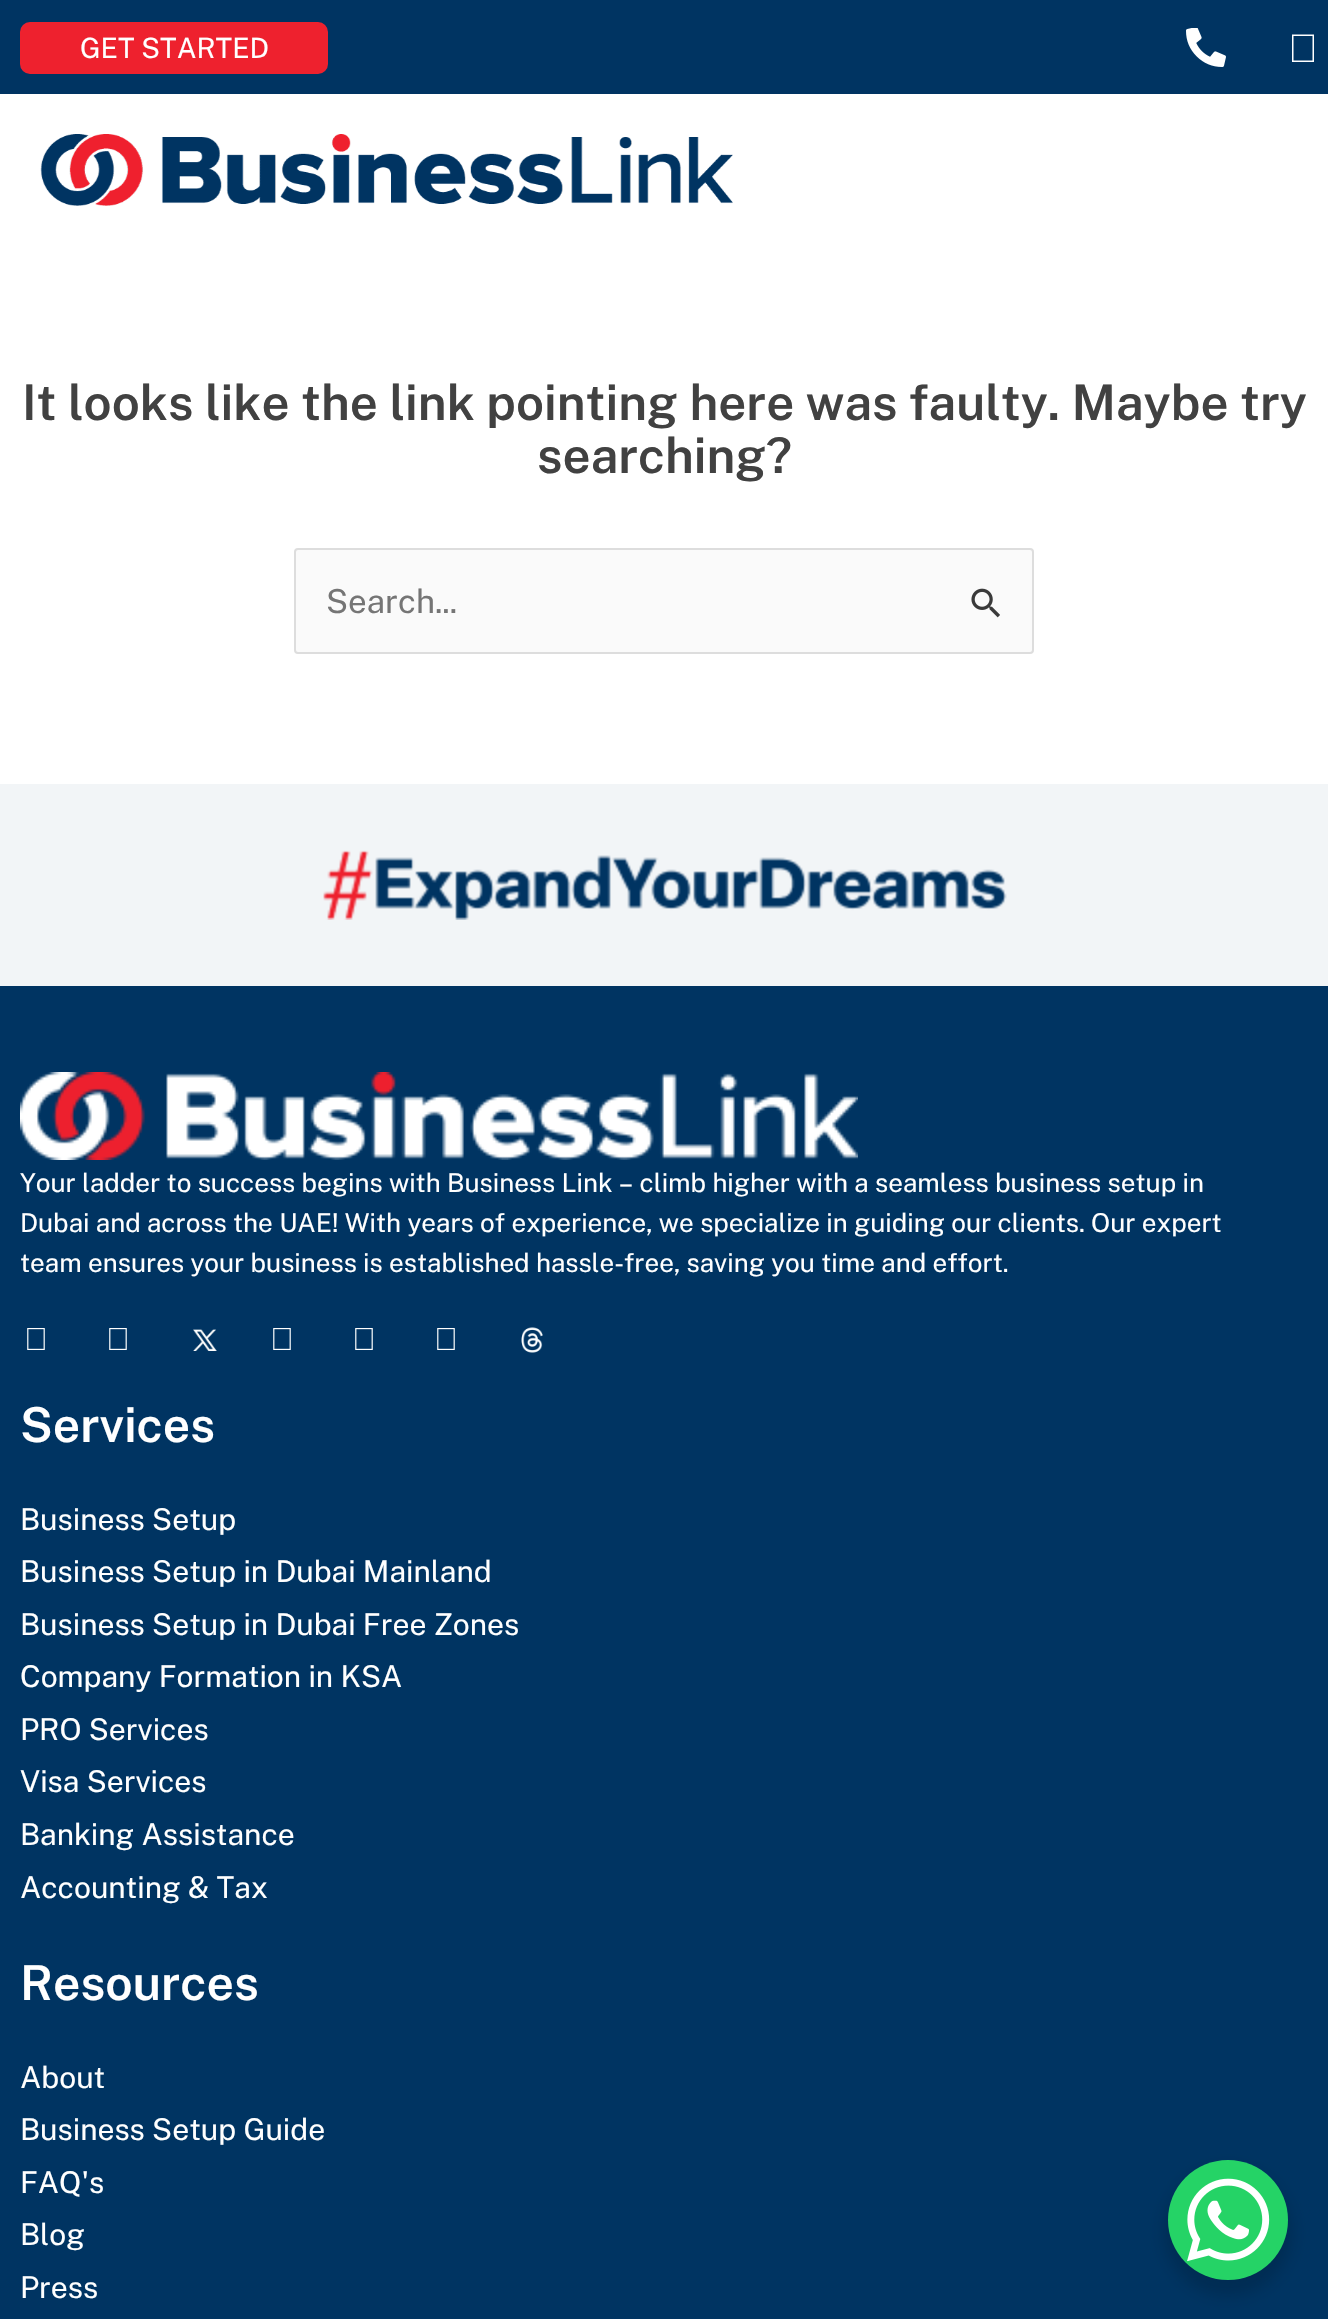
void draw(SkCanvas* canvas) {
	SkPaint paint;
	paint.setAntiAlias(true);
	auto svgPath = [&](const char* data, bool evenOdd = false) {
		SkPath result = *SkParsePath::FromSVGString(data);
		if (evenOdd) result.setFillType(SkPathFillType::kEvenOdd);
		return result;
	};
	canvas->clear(0xffffffff);
	paint.setColor(0xff003462);
	canvas->drawRect(SkRect::MakeXYWH(0, 0, 1328, 94), paint);
	paint.setColor(0xffee212e);
	canvas->drawRoundRect(SkRect::MakeXYWH(20, 22, 308, 52), 10, 10, paint);
	SkFont f1(fontMgr->matchFamilyStyle("Public Sans", SkFontStyle::Normal()), 28);
	f1.setSubpixel(true);
	paint.setColor(0xffffffff);
	canvas->drawString("GET STARTED", 80, 58, f1, paint);
	canvas->drawImageRect(SkImages::DeferredFromEncodedData(SkData::MakeFromFileName("img1.png")), SkRect::MakeXYWH(1186, 28, 40, 39), SkSamplingOptions());
	canvas->drawPath(svgPath("M1292 34.5H1314V62H1292ZM1293.5 36V60.5H1312.5V36Z"), paint);
	canvas->drawImageRect(SkImages::DeferredFromEncodedData(SkData::MakeFromFileName("img2.png")), SkRect::MakeXYWH(40, 134, 693, 72), SkSamplingOptions());
	SkFont f2(fontMgr->matchFamilyStyle("Public Sans", SkFontStyle(600, SkFontStyle::kNormal_Width, SkFontStyle::kUpright_Slant)), 49.25);
	f2.setSubpixel(true);
	paint.setColor(0xff414141);
	canvas->drawString("It looks like the link pointing here was faulty. Maybe try", 22, 420, f2, paint);
	canvas->drawString("searching?", 537, 473, f2, paint);
	paint.setColor(0xfffafafa);
	canvas->drawRoundRect(SkRect::MakeXYWH(295, 549, 738, 104), 3, 3, paint);
	paint.setStroke(true);
	paint.setStrokeWidth(2);
	paint.setColor(0xffdddddd);
	canvas->drawRoundRect(SkRect::MakeXYWH(295, 549, 738, 104), 3, 3, paint);
	SkFont f3(fontMgr->matchFamilyStyle("Public Sans", SkFontStyle::Normal()), 33);
	f3.setSubpixel(true);
	paint.setStroke(false);
	paint.setColor(0xff757575);
	canvas->drawString("Search...", 326, 613, f3, paint);
	canvas->drawImageRect(SkImages::DeferredFromEncodedData(SkData::MakeFromFileName("img3.png")), SkRect::MakeXYWH(971, 588, 29, 30), SkSamplingOptions());
	paint.setColor(0xfff2f5f7);
	canvas->drawRect(SkRect::MakeXYWH(0, 784, 1328, 202), paint);
	canvas->drawImageRect(SkImages::DeferredFromEncodedData(SkData::MakeFromFileName("img4.png")), SkRect::MakeXYWH(323, 850, 684, 70), SkSamplingOptions());
	paint.setColor(0xff003462);
	canvas->drawRect(SkRect::MakeXYWH(0, 986, 1328, 1333), paint);
	canvas->drawImageRect(SkImages::DeferredFromEncodedData(SkData::MakeFromFileName("img5.png")), SkRect::MakeXYWH(20, 1072, 838, 88), SkSamplingOptions());
	SkFont f4(fontMgr->matchFamilyStyle("Public Sans", SkFontStyle::Normal()), 26);
	f4.setSubpixel(true);
	paint.setColor(0xffffffff);
	canvas->drawString("Your ladder to success begins with Business Link – climb higher with a seamless business setup in", 20, 1192, f4, paint);
	canvas->drawString("Dubai and across the UAE! With years of experience, we specialize in guiding our clients. Our expert", 20, 1232, f4, paint);
	canvas->drawString("team ensures your business is established hassle-free, saving you time and effort.", 20, 1272, f4, paint);
	canvas->drawImageRect(SkImages::DeferredFromEncodedData(SkData::MakeFromFileName("img6.png")), SkRect::MakeXYWH(27, 1328, 18, 22), SkSamplingOptions());
	canvas->drawImageRect(SkImages::DeferredFromEncodedData(SkData::MakeFromFileName("img6.png")), SkRect::MakeXYWH(109, 1328, 18, 22), SkSamplingOptions());
	canvas->drawImageRect(SkImages::DeferredFromEncodedData(SkData::MakeFromFileName("img7.png")), SkRect::MakeXYWH(193, 1329, 24, 22), SkSamplingOptions());
	canvas->drawImageRect(SkImages::DeferredFromEncodedData(SkData::MakeFromFileName("img6.png")), SkRect::MakeXYWH(273, 1328, 18, 22), SkSamplingOptions());
	canvas->drawImageRect(SkImages::DeferredFromEncodedData(SkData::MakeFromFileName("img6.png")), SkRect::MakeXYWH(355, 1328, 18, 22), SkSamplingOptions());
	canvas->drawImageRect(SkImages::DeferredFromEncodedData(SkData::MakeFromFileName("img6.png")), SkRect::MakeXYWH(437, 1328, 18, 22), SkSamplingOptions());
	canvas->drawImageRect(SkImages::DeferredFromEncodedData(SkData::MakeFromFileName("img8.png")), SkRect::MakeXYWH(521, 1327, 22, 26), SkSamplingOptions());
	SkFont f5(fontMgr->matchFamilyStyle("Public Sans", SkFontStyle(600, SkFontStyle::kNormal_Width, SkFontStyle::kUpright_Slant)), 48);
	f5.setSubpixel(true);
	canvas->drawString("Services", 20, 1442, f5, paint);
	SkFont f6(fontMgr->matchFamilyStyle("Public Sans", SkFontStyle::Normal()), 30);
	f6.setSubpixel(true);
	canvas->drawString("Business Setup", 20, 1530, f6, paint);
	canvas->drawString("Business Setup in Dubai Mainland", 20, 1582, f6, paint);
	canvas->drawString("Business Setup in Dubai Free Zones", 20, 1635, f6, paint);
	canvas->drawString("Company Formation in KSA", 20, 1687, f6, paint);
	canvas->drawString("PRO Services", 20, 1740, f6, paint);
	canvas->drawString("Visa Services", 20, 1792, f6, paint);
	canvas->drawString("Banking Assistance", 20, 1845, f6, paint);
	canvas->drawString("Accounting & Tax", 20, 1898, f6, paint);
	canvas->drawString("Resources", 20, 2000, f5, paint);
	canvas->drawString("About", 20, 2088, f6, paint);
	canvas->drawString("Business Setup Guide", 20, 2140, f6, paint);
	canvas->drawString("FAQ's", 20, 2193, f6, paint);
	canvas->drawString("Blog", 20, 2245, f6, paint);
	canvas->drawString("Press", 20, 2298, f6, paint);
	paint.setColor(0x26000000);
	paint.setMaskFilter(SkMaskFilter::MakeBlur(kNormal_SkBlurStyle, 8));
	canvas->drawRoundRect(SkRect::MakeXYWH(1164, 2168, 128, 128), 64, 64, paint);
	paint.setMaskFilter(nullptr);
	paint.setColor(0xff25d366);
	canvas->drawCircle(1228, 2220, 60, paint);
	canvas->drawImageRect(SkImages::DeferredFromEncodedData(SkData::MakeFromFileName("img9.png")), SkRect::MakeXYWH(1187, 2178, 83, 84), SkSamplingOptions());
}
